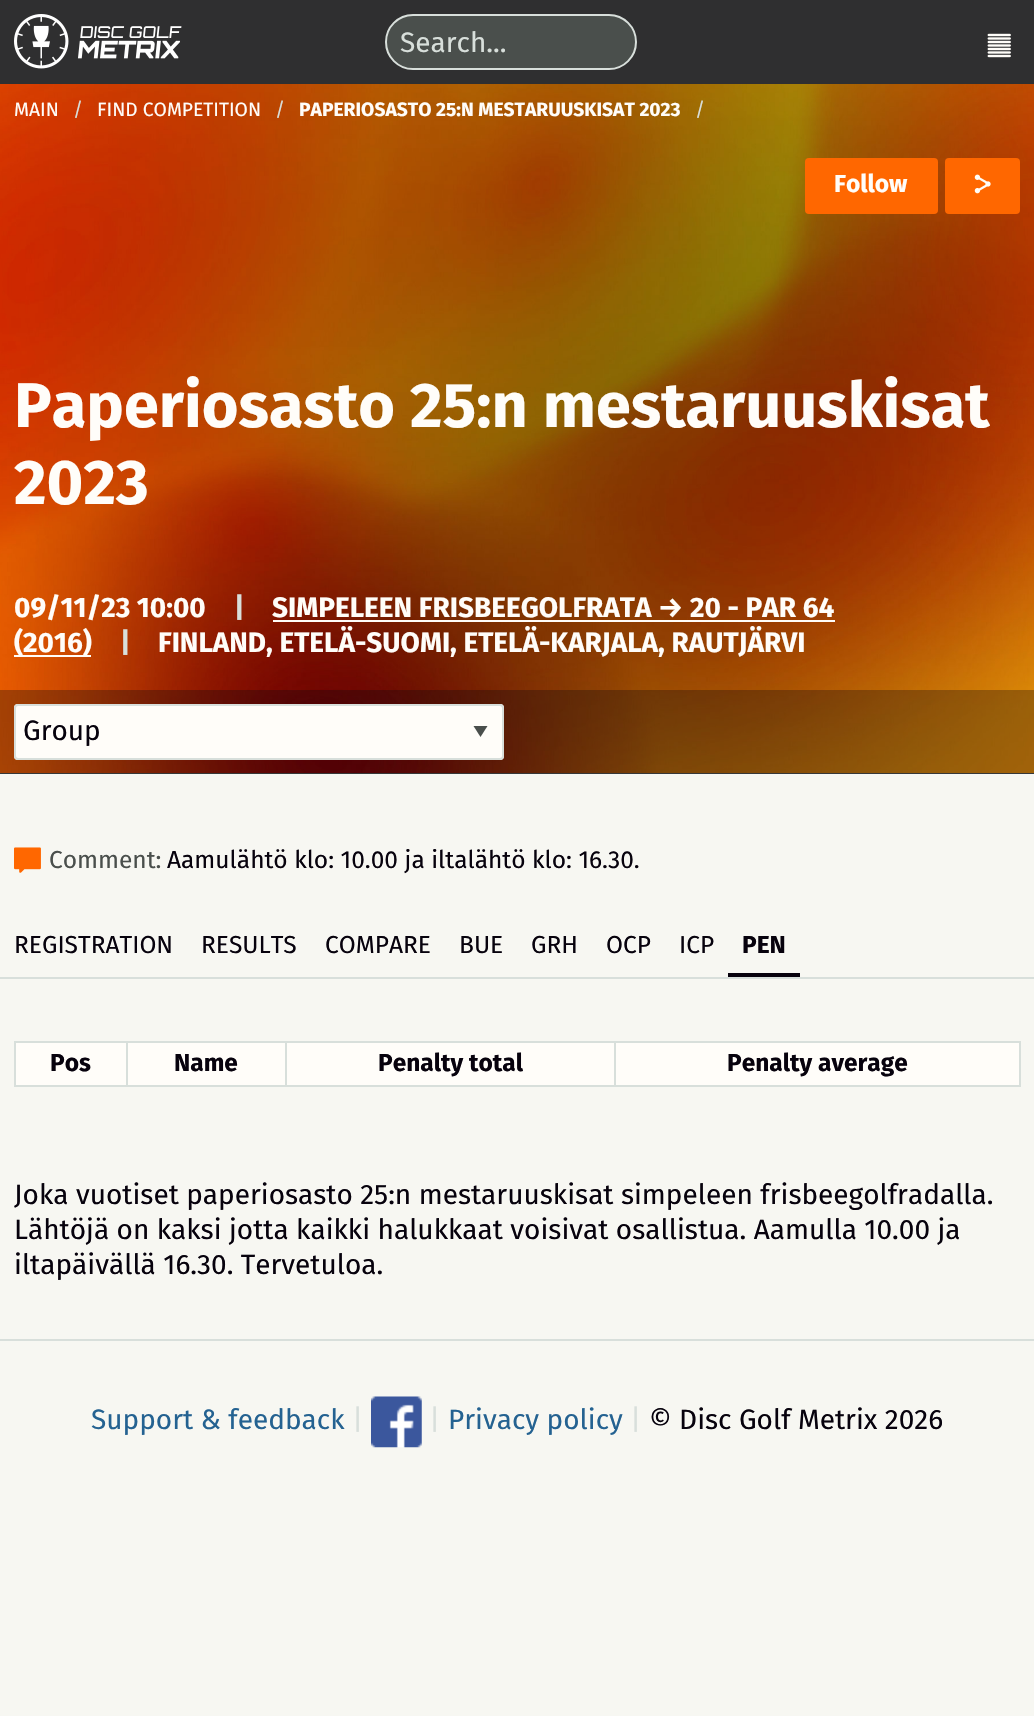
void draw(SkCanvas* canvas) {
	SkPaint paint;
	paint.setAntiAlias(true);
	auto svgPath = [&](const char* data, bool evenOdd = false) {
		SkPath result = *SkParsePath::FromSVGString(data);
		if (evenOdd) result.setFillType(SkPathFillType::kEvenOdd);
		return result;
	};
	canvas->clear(0xfff7f7f2);
	paint.setColor(0xff2f2f30);
	canvas->drawRect(SkRect::MakeXYWH(0, 0, 1034, 84), paint);
	canvas->drawImageRect(SkImages::DeferredFromEncodedData(SkData::MakeFromFileName("img1.png")), SkRect::MakeXYWH(14, 14, 168, 55), SkSamplingOptions());
	paint.setColor(0xff4a4f4c);
	canvas->drawRoundRect(SkRect::MakeXYWH(386, 15, 250, 54), 27, 27, paint);
	paint.setStroke(true);
	paint.setStrokeWidth(2);
	paint.setColor(0xffd8dfdb);
	canvas->drawRoundRect(SkRect::MakeXYWH(386, 15, 250, 54), 27, 27, paint);
	SkFont f1(fontMgr->matchFamilyStyle("Fira Sans", SkFontStyle::Normal()), 28);
	f1.setSubpixel(true);
	paint.setStroke(false);
	canvas->drawString("Search...", 400, 52, f1, paint);
	canvas->drawImageRect(SkImages::DeferredFromEncodedData(SkData::MakeFromFileName("img2.png")), SkRect::MakeXYWH(987, 33, 24, 25), SkSamplingOptions());
	paint.setColor(0xff4a4f4c);
	canvas->drawRect(SkRect::MakeXYWH(0, 773, 1034, 1), paint);
	canvas->drawImageRect(SkImages::DeferredFromEncodedData(SkData::MakeFromFileName("img3.png")), SkRect::MakeXYWH(0, 84, 1034, 689), SkSamplingOptions());
	SkFont f2(fontMgr->matchFamilyStyle("Fira Sans", SkFontStyle::Normal()), 19.25);
	f2.setSubpixel(true);
	paint.setColor(0xfffffdf9);
	canvas->drawString("MAIN", 14, 116, f2, paint);
	paint.setColor(0xffd8dfdb);
	canvas->drawString("/", 73, 116, f2, paint);
	paint.setColor(0xfffffdf9);
	canvas->drawString("FIND COMPETITION", 97, 116, f2, paint);
	paint.setColor(0xffd8dfdb);
	canvas->drawString("/", 275, 116, f2, paint);
	SkFont f3(fontMgr->matchFamilyStyle("Fira Sans", SkFontStyle::Bold()), 19.25);
	f3.setSubpixel(true);
	paint.setColor(0xfffffdf9);
	canvas->drawString("PAPERIOSASTO 25:N MESTARUUSKISAT 2023", 299, 116, f3, paint);
	paint.setColor(0xffd8dfdb);
	canvas->drawString("/", 695, 116, f2, paint);
	paint.setColor(0xffff6700);
	canvas->drawRoundRect(SkRect::MakeXYWH(805, 158, 133, 56), 4, 4, paint);
	SkFont f4(fontMgr->matchFamilyStyle("Fira Sans", SkFontStyle::Bold()), 24.5);
	f4.setSubpixel(true);
	paint.setColor(0xfffffdf9);
	canvas->drawString("Follow", 834, 192, f4, paint);
	paint.setColor(0xffff6700);
	canvas->drawRoundRect(SkRect::MakeXYWH(945, 158, 75, 56), 4, 4, paint);
	canvas->drawImageRect(SkImages::DeferredFromEncodedData(SkData::MakeFromFileName("img4.png")), SkRect::MakeXYWH(974, 174, 17, 20), SkSamplingOptions());
	SkFont f5(fontMgr->matchFamilyStyle("Fira Sans", SkFontStyle::Bold()), 63);
	f5.setSubpixel(true);
	paint.setColor(0xfffffdf9);
	canvas->drawString("Paperiosasto 25:n mestaruuskisat", 14, 427, f5, paint);
	canvas->drawString("2023", 14, 504, f5, paint);
	SkFont f6(fontMgr->matchFamilyStyle("Fira Sans", SkFontStyle::Bold()), 28);
	f6.setSubpixel(true);
	canvas->drawString("09/11/23 10:00", 14, 617, f6, paint);
	paint.setColor(0xffd8dfdb);
	canvas->drawString("|", 234, 617, f6, paint);
	paint.setColor(0xfffffdf9);
	canvas->drawString("SIMPELEEN FRISBEEGOLFRATA → 20 - PAR 64", 272, 617, f6, paint);
	canvas->drawRect(SkRect::MakeXYWH(273, 620, 562, 2), paint);
	canvas->drawRect(SkRect::MakeXYWH(14, 655, 77, 2), paint);
	canvas->drawString("(2016)", 14, 652, f6, paint);
	paint.setColor(0xffd8dfdb);
	canvas->drawString("|", 120, 652, f6, paint);
	paint.setColor(0xfffffdf9);
	canvas->drawString("FINLAND, ETELÄ-SUOMI, ETELÄ-KARJALA, RAUTJÄRVI", 158, 652, f6, paint);
	paint.setColor(0x4d07020d);
	canvas->drawRect(SkRect::MakeXYWH(0, 690, 1034, 84), paint);
	paint.setColor(0xfffffdf9);
	canvas->drawRoundRect(SkRect::MakeXYWH(14, 704, 490, 56), 4, 4, paint);
	paint.setColor(0xff4a4f4c);
	canvas->drawPath(svgPath("M473.5 726H487.5L480.5 737Z"), paint);
	paint.setStroke(true);
	paint.setColor(0xffd8dfdb);
	canvas->drawRoundRect(SkRect::MakeXYWH(15, 705, 488, 54), 3, 3, paint);
	paint.setStroke(false);
	paint.setColor(0xff07020d);
	canvas->drawString("Group", 23, 740, f1, paint);
	canvas->drawImageRect(SkImages::DeferredFromEncodedData(SkData::MakeFromFileName("img5.png")), SkRect::MakeXYWH(14, 847, 27, 26), SkSamplingOptions());
	SkFont f7(fontMgr->matchFamilyStyle("Fira Sans", SkFontStyle::Normal()), 24.5);
	f7.setSubpixel(true);
	paint.setColor(0xff4a4f4c);
	canvas->drawString("Comment:", 49, 868, f7, paint);
	paint.setColor(0xff07020d);
	canvas->drawString("Aamulähtö klo: 10.00 ja iltalähtö klo: 16.30.", 167, 868, f7, paint);
	paint.setColor(0xffd8dfdb);
	canvas->drawRect(SkRect::MakeXYWH(0, 977, 1034, 2), paint);
	paint.setColor(0xff07020d);
	canvas->drawString("REGISTRATION", 14, 953, f7, paint);
	canvas->drawString("RESULTS", 201, 953, f7, paint);
	canvas->drawString("COMPARE", 325, 953, f7, paint);
	canvas->drawString("BUE", 459, 953, f7, paint);
	canvas->drawString("GRH", 531, 953, f7, paint);
	canvas->drawString("OCP", 606, 953, f7, paint);
	canvas->drawString("ICP", 679, 953, f7, paint);
	canvas->drawRect(SkRect::MakeXYWH(728, 973, 72, 4), paint);
	canvas->drawString("PEN", 742, 953, f4, paint);
	paint.setColor(0xfffffdf9);
	canvas->drawRect(SkRect::MakeXYWH(16, 1043, 1003, 42), paint);
	paint.setColor(0xffd8dfdb);
	canvas->drawRect(SkRect::MakeXYWH(614, 1041, 406, 2), paint);
	canvas->drawRect(SkRect::MakeXYWH(1019, 1041, 2, 46), paint);
	canvas->drawRect(SkRect::MakeXYWH(614, 1085, 406, 2), paint);
	canvas->drawRect(SkRect::MakeXYWH(614, 1041, 2, 46), paint);
	canvas->drawRect(SkRect::MakeXYWH(285, 1041, 331, 2), paint);
	canvas->drawRect(SkRect::MakeXYWH(285, 1085, 331, 2), paint);
	canvas->drawRect(SkRect::MakeXYWH(285, 1041, 2, 46), paint);
	canvas->drawRect(SkRect::MakeXYWH(126, 1041, 161, 2), paint);
	canvas->drawRect(SkRect::MakeXYWH(126, 1085, 161, 2), paint);
	canvas->drawRect(SkRect::MakeXYWH(126, 1041, 2, 46), paint);
	canvas->drawRect(SkRect::MakeXYWH(14, 1041, 114, 2), paint);
	canvas->drawRect(SkRect::MakeXYWH(14, 1085, 114, 2), paint);
	canvas->drawRect(SkRect::MakeXYWH(14, 1041, 2, 46), paint);
	paint.setColor(0xff07020d);
	canvas->drawString("Pos", 50, 1071, f4, paint);
	canvas->drawString("Name", 174, 1071, f4, paint);
	canvas->drawString("Penalty total", 378, 1071, f4, paint);
	canvas->drawString("Penalty average", 727, 1071, f4, paint);
	canvas->drawString("Joka vuotiset paperiosasto 25:n mestaruuskisat simpeleen frisbeegolfradalla.", 14, 1204, f1, paint);
	canvas->drawString("Lähtöjä on kaksi jotta kaikki halukkaat voisivat osallistua. Aamulla 10.00 ja", 14, 1239, f1, paint);
	canvas->drawString("iltapäivällä 16.30. Tervetuloa.", 14, 1274, f1, paint);
	paint.setColor(0xffd8dfdb);
	canvas->drawRect(SkRect::MakeXYWH(0, 1339, 1034, 2), paint);
	paint.setColor(0xff246291);
	canvas->drawString("Support & feedback", 91, 1429, f1, paint);
	paint.setColor(0xffd8dfdb);
	canvas->drawString("|", 352, 1429, f1, paint);
	canvas->drawImageRect(SkImages::DeferredFromEncodedData(SkData::MakeFromFileName("img6.png")), SkRect::MakeXYWH(371, 1396, 51, 52), SkSamplingOptions());
	canvas->drawString("|", 429, 1429, f1, paint);
	paint.setColor(0xff246291);
	canvas->drawString("Privacy policy", 448, 1429, f1, paint);
	paint.setColor(0xffd8dfdb);
	canvas->drawString("|", 630, 1429, f1, paint);
	paint.setColor(0xff07020d);
	canvas->drawString("© Disc Golf Metrix 2026", 649, 1429, f1, paint);
}
